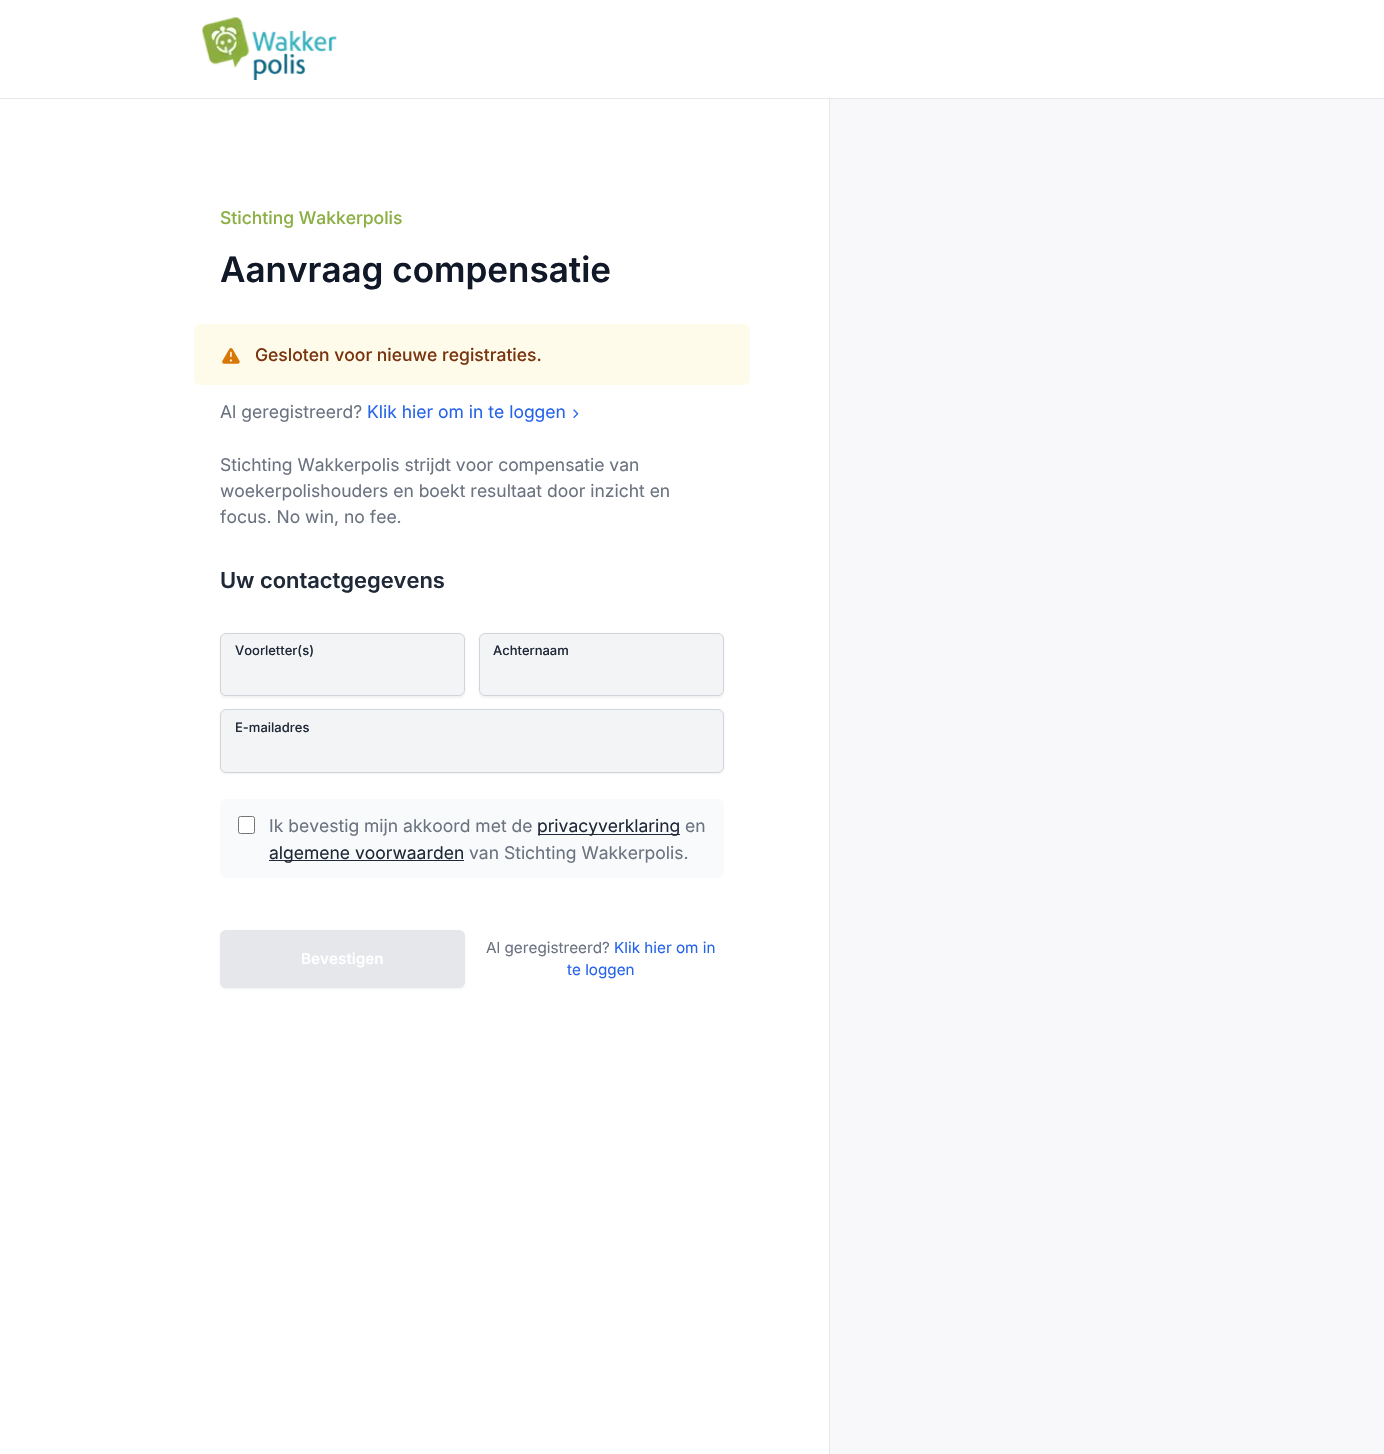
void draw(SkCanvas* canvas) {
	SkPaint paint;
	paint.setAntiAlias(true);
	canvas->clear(0xffffffff);
	paint.setColor(0xffe5e7eb);
	canvas->drawRect(SkRect::MakeXYWH(0, 98, 1384, 1), paint);
	canvas->drawImageRect(SkImages::DeferredFromEncodedData(SkData::MakeFromFileName("img1.png")), SkRect::MakeXYWH(202, 17, 135, 63), SkSamplingOptions());
	SkFont f1(fontMgr->matchFamilyStyle("Inter", SkFontStyle(500, SkFontStyle::kNormal_Width, SkFontStyle::kUpright_Slant)), 17.5);
	f1.setSubpixel(true);
	paint.setColor(0xff8baf42);
	canvas->drawString("Stichting Wakkerpolis", 220, 224, f1, paint);
	SkFont f2(fontMgr->matchFamilyStyle("Inter", SkFontStyle(600, SkFontStyle::kNormal_Width, SkFontStyle::kUpright_Slant)), 35);
	f2.setSubpixel(true);
	paint.setColor(0xff111827);
	canvas->drawString("Aanvraag compensatie", 220, 282, f2, paint);
	paint.setColor(0xfffffbeb);
	canvas->drawRoundRect(SkRect::MakeXYWH(194, 324, 556, 61), 6, 6, paint);
	canvas->drawImageRect(SkImages::DeferredFromEncodedData(SkData::MakeFromFileName("img2.png")), SkRect::MakeXYWH(222, 348, 18, 16), SkSamplingOptions());
	paint.setColor(0xff78350f);
	canvas->drawString("Gesloten voor nieuwe registraties.", 255, 361, f1, paint);
	SkFont f3(fontMgr->matchFamilyStyle("Inter", SkFontStyle::Normal()), 17.5);
	f3.setSubpixel(true);
	paint.setColor(0xff6b7280);
	canvas->drawString("Al geregistreerd?", 220, 418, f3, paint);
	paint.setColor(0xff2563eb);
	canvas->drawString("Klik hier om in te loggen", 367, 418, f3, paint);
	canvas->drawImageRect(SkImages::DeferredFromEncodedData(SkData::MakeFromFileName("img3.png")), SkRect::MakeXYWH(573, 409, 6, 9), SkSamplingOptions());
	paint.setColor(0xff6b7280);
	canvas->drawString("Stichting Wakkerpolis strijdt voor compensatie van", 220, 471, f3, paint);
	canvas->drawString("woekerpolishouders en boekt resultaat door inzicht en", 220, 497, f3, paint);
	canvas->drawString("focus. No win, no fee.", 220, 523, f3, paint);
	SkFont f4(fontMgr->matchFamilyStyle("Inter", SkFontStyle(600, SkFontStyle::kNormal_Width, SkFontStyle::kUpright_Slant)), 21.9);
	f4.setSubpixel(true);
	paint.setColor(0xff1f2937);
	canvas->drawString("Uw contactgegevens", 220, 588, f4, paint);
	paint.setColor(0x0d000000);
	paint.setMaskFilter(SkMaskFilter::MakeBlur(kNormal_SkBlurStyle, 1));
	canvas->drawRoundRect(SkRect::MakeXYWH(220, 634, 245, 64), 6, 6, paint);
	paint.setMaskFilter(nullptr);
	paint.setColor(0xfff3f4f6);
	canvas->drawRoundRect(SkRect::MakeXYWH(220.5, 633.5, 244, 62), 5.5, 5.5, paint);
	paint.setStroke(true);
	paint.setStrokeWidth(1);
	paint.setColor(0xffd1d5db);
	canvas->drawRoundRect(SkRect::MakeXYWH(220.5, 633.5, 244, 62), 5.5, 5.5, paint);
	SkFont f5(fontMgr->matchFamilyStyle("Inter", SkFontStyle(500, SkFontStyle::kNormal_Width, SkFontStyle::kUpright_Slant)), 13);
	f5.setSubpixel(true);
	paint.setStroke(false);
	paint.setColor(0xff1f2937);
	canvas->drawString("Voorletter(s)", 235, 655, f5, paint);
	paint.setColor(0x0d000000);
	paint.setMaskFilter(SkMaskFilter::MakeBlur(kNormal_SkBlurStyle, 1));
	canvas->drawRoundRect(SkRect::MakeXYWH(479, 634, 245, 64), 6, 6, paint);
	paint.setMaskFilter(nullptr);
	paint.setColor(0xfff3f4f6);
	canvas->drawRoundRect(SkRect::MakeXYWH(479.5, 633.5, 244, 62), 5.5, 5.5, paint);
	paint.setStroke(true);
	paint.setColor(0xffd1d5db);
	canvas->drawRoundRect(SkRect::MakeXYWH(479.5, 633.5, 244, 62), 5.5, 5.5, paint);
	paint.setStroke(false);
	paint.setColor(0xff1f2937);
	canvas->drawString("Achternaam", 493, 655, f5, paint);
	paint.setColor(0x0d000000);
	paint.setMaskFilter(SkMaskFilter::MakeBlur(kNormal_SkBlurStyle, 1));
	canvas->drawRoundRect(SkRect::MakeXYWH(220, 710, 504, 64), 6, 6, paint);
	paint.setMaskFilter(nullptr);
	paint.setColor(0xfff3f4f6);
	canvas->drawRoundRect(SkRect::MakeXYWH(220.5, 709.5, 503, 63), 5.5, 5.5, paint);
	paint.setStroke(true);
	paint.setColor(0xffd1d5db);
	canvas->drawRoundRect(SkRect::MakeXYWH(220.5, 709.5, 503, 63), 5.5, 5.5, paint);
	paint.setStroke(false);
	paint.setColor(0xff1f2937);
	canvas->drawString("E-mailadres", 235, 732, f5, paint);
	paint.setColor(0xfff9fafb);
	canvas->drawRoundRect(SkRect::MakeXYWH(220, 799, 504, 79), 6, 6, paint);
	paint.setColor(0xffffffff);
	canvas->drawRoundRect(SkRect::MakeXYWH(238.5, 816.5, 16, 17), 2, 2, paint);
	paint.setStroke(true);
	paint.setColor(0xff767676);
	canvas->drawRoundRect(SkRect::MakeXYWH(238.5, 816.5, 16, 17), 2, 2, paint);
	paint.setStroke(false);
	paint.setColor(0xff6b7280);
	canvas->drawString("Ik bevestig mijn akkoord met de", 269, 832, f3, paint);
	paint.setColor(0xff1f2937);
	canvas->drawRect(SkRect::MakeXYWH(538, 834, 142, 1), paint);
	canvas->drawString("privacyverklaring", 537, 832, f3, paint);
	paint.setColor(0xff6b7280);
	canvas->drawString("en", 685, 832, f3, paint);
	paint.setColor(0xff1f2937);
	canvas->drawRect(SkRect::MakeXYWH(269, 860, 195, 1), paint);
	canvas->drawString("algemene voorwaarden", 269, 859, f3, paint);
	paint.setColor(0xff6b7280);
	canvas->drawString("van Stichting Wakkerpolis.", 469, 859, f3, paint);
	paint.setColor(0x0d000000);
	paint.setMaskFilter(SkMaskFilter::MakeBlur(kNormal_SkBlurStyle, 1));
	canvas->drawRoundRect(SkRect::MakeXYWH(220, 931, 245, 58), 6, 6, paint);
	paint.setMaskFilter(nullptr);
	paint.setColor(0xffe5e7eb);
	canvas->drawRoundRect(SkRect::MakeXYWH(220, 930, 245, 58), 6, 6, paint);
	SkFont f6(fontMgr->matchFamilyStyle("Inter", SkFontStyle(600, SkFontStyle::kNormal_Width, SkFontStyle::kUpright_Slant)), 15.25);
	f6.setSubpixel(true);
	paint.setColor(0xffffffff);
	canvas->drawString("Bevestigen", 301, 964, f6, paint);
	SkFont f7(fontMgr->matchFamilyStyle("Inter", SkFontStyle::Normal()), 15.25);
	f7.setSubpixel(true);
	paint.setColor(0xff6b7280);
	canvas->drawString("Al geregistreerd?", 486, 953, f7, paint);
	paint.setColor(0xff2563eb);
	canvas->drawString("Klik hier om in", 614, 953, f7, paint);
	canvas->drawString("te loggen", 567, 975, f7, paint);
	paint.setColor(0xfff8f8fa);
	canvas->drawRect(SkRect::MakeXYWH(830, 99, 554, 1355), paint);
	paint.setColor(0xffe5e7eb);
	canvas->drawRect(SkRect::MakeXYWH(829, 99, 1, 1355), paint);
}
